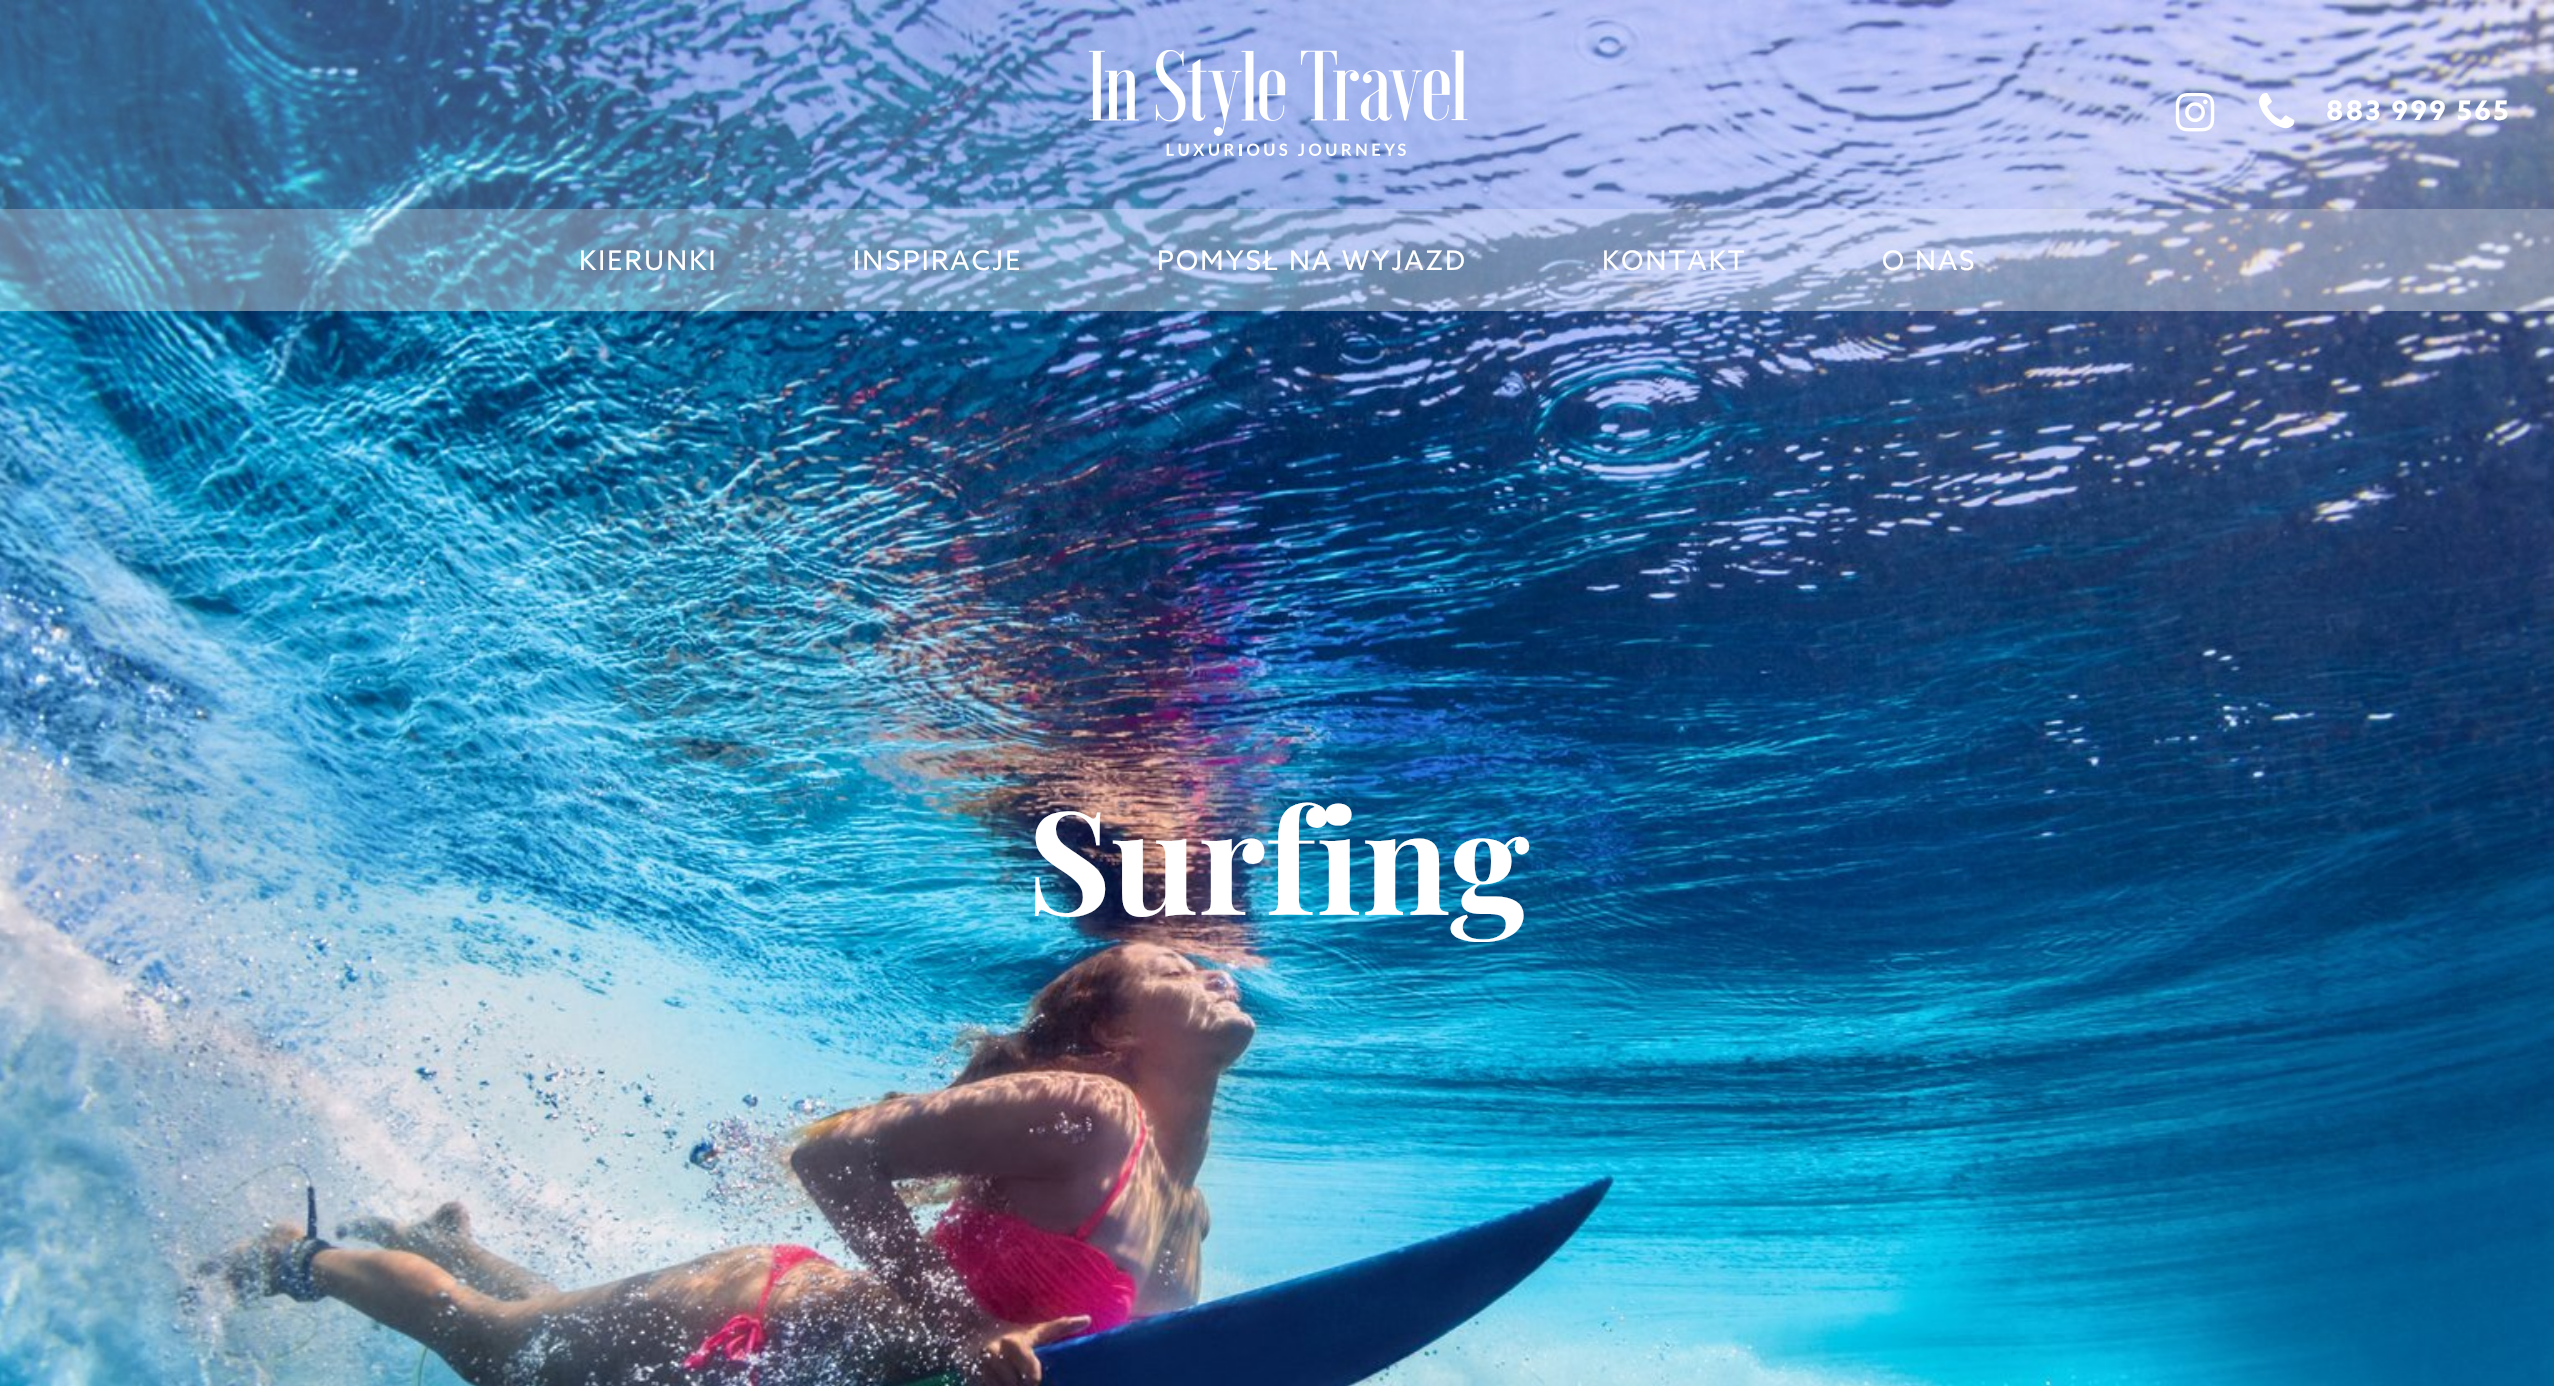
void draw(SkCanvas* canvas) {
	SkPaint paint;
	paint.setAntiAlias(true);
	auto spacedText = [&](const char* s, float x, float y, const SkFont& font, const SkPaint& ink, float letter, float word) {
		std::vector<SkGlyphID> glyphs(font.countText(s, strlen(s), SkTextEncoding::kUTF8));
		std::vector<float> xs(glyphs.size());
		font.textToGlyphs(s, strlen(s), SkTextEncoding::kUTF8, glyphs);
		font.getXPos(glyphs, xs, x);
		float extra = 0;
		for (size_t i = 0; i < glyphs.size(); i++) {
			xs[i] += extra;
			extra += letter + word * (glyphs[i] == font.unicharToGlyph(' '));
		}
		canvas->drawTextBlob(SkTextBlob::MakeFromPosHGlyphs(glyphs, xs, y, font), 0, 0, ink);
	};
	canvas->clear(0xffffffff);
	canvas->drawImageRect(SkImages::DeferredFromEncodedData(SkData::MakeFromFileName("img4.png")), SkRect::MakeXYWH(0, 0, 2554, 1386), SkSamplingOptions());
	paint.setColor(0x33ffffff);
	canvas->drawRect(SkRect::MakeXYWH(0, 0, 2554, 209), paint);
	canvas->drawImageRect(SkImages::DeferredFromEncodedData(SkData::MakeFromFileName("img1.png")), SkRect::MakeXYWH(1088, 50, 380, 106), SkSamplingOptions());
	canvas->drawImageRect(SkImages::DeferredFromEncodedData(SkData::MakeFromFileName("img2.png")), SkRect::MakeXYWH(2175, 92, 40, 40), SkSamplingOptions());
	canvas->drawImageRect(SkImages::DeferredFromEncodedData(SkData::MakeFromFileName("img3.png")), SkRect::MakeXYWH(2259, 93, 36, 36), SkSamplingOptions());
	SkFont f1(fontMgr->matchFamilyStyle("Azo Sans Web", SkFontStyle::Bold()), 27);
	f1.setSubpixel(true);
	paint.setColor(0xffffffff);
	spacedText("883 999 565", 2326, 120, f1, paint, 2.25, 0);
	paint.setColor(0x66ffffff);
	canvas->drawRect(SkRect::MakeXYWH(0, 209, 2554, 102), paint);
	SkFont f2(fontMgr->matchFamilyStyle("Azo Sans Web", SkFontStyle::Normal()), 27);
	f2.setSubpixel(true);
	paint.setColor(0xffffffff);
	spacedText("KIERUNKI", 579, 270, f2, paint, 2.25, 0);
	spacedText("INSPIRACJE", 853, 270, f2, paint, 2.25, 0);
	spacedText("POMYSŁ NA WYJAZD", 1157, 270, f2, paint, 2.25, 0);
	spacedText("KONTAKT", 1602, 270, f2, paint, 2.25, 0);
	spacedText("O NAS", 1882, 270, f2, paint, 2.25, 0);
	SkFont f3(fontMgr->matchFamilyStyle("Playfair Display", SkFontStyle::Bold()), 144);
	f3.setSubpixel(true);
	canvas->drawString("Surfing", 1027, 915, f3, paint);
}
